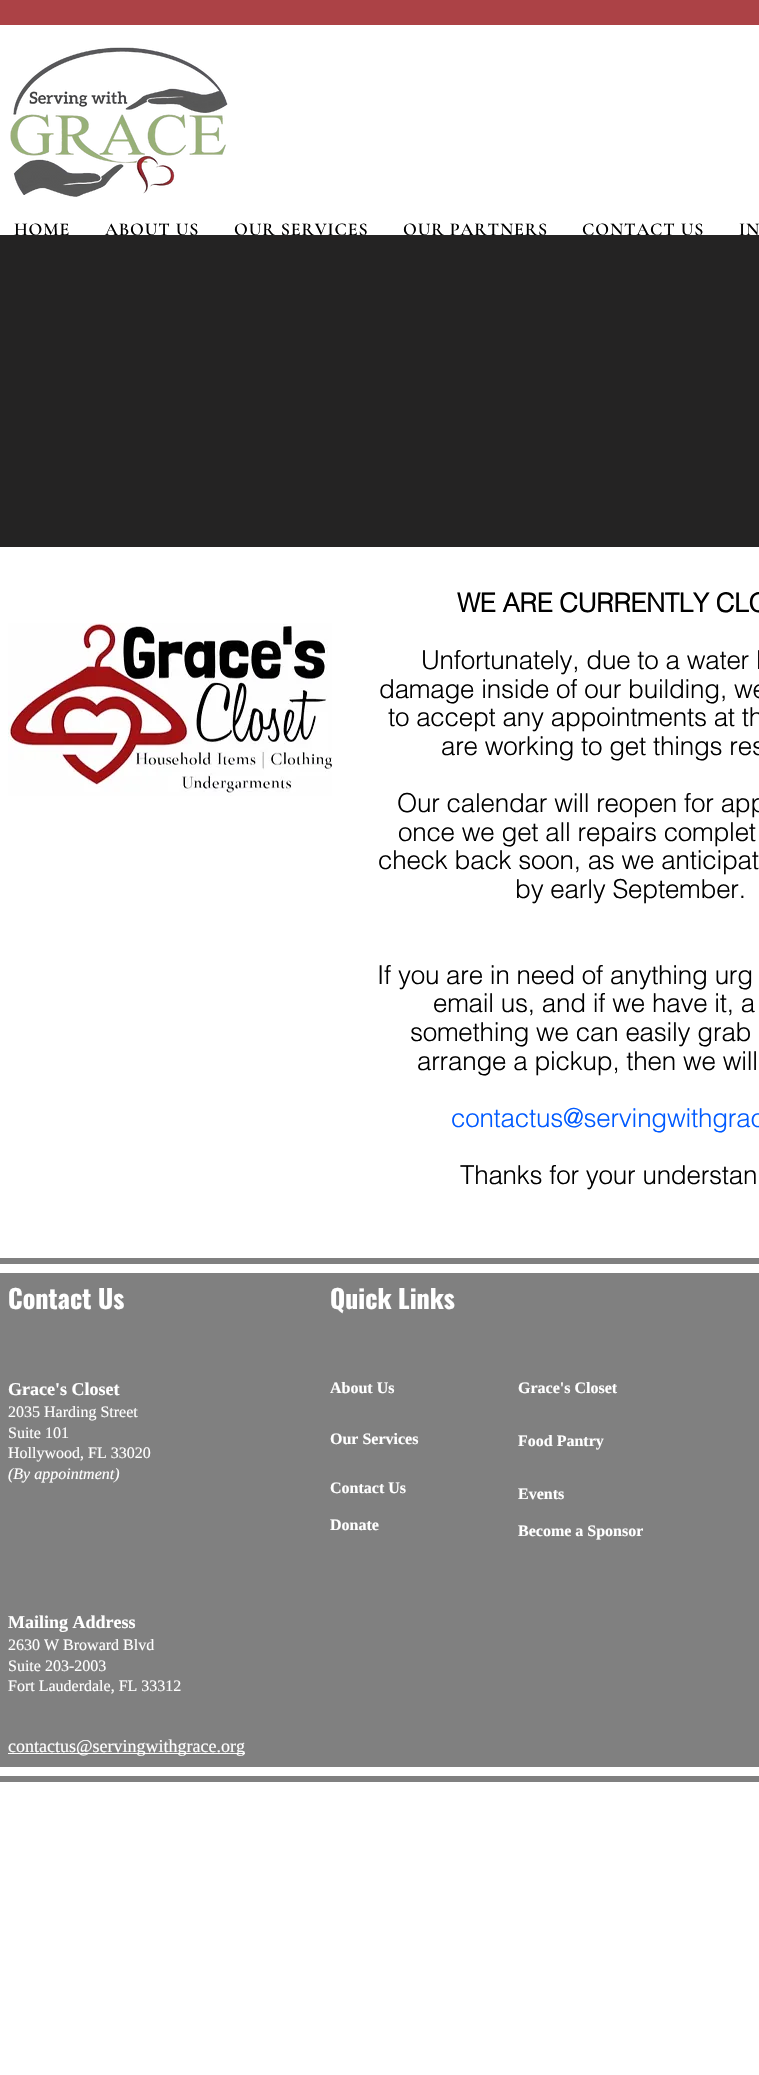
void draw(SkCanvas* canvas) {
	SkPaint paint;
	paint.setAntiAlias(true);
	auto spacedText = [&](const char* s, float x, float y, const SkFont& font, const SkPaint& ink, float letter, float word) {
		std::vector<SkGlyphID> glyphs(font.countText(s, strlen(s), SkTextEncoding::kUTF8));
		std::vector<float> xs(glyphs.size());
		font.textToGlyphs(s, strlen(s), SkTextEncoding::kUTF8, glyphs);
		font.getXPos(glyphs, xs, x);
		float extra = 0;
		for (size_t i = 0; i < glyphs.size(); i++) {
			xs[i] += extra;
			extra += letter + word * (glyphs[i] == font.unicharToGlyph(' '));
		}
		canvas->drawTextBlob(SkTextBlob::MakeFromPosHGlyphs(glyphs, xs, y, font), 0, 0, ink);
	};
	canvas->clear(0xffffffff);
	paint.setColor(0xffac4246);
	canvas->drawRect(SkRect::MakeXYWH(0, 0, 759, 25), paint);
	canvas->drawImageRect(SkImages::DeferredFromEncodedData(SkData::MakeFromFileName("img1.png")), SkRect::MakeXYWH(10, 47, 218, 150), SkSamplingOptions());
	SkFont f1(fontMgr->matchFamilyStyle("Cormorant Garamond", SkFontStyle(600, SkFontStyle::kNormal_Width, SkFontStyle::kUpright_Slant)), 18);
	f1.setSubpixel(true);
	paint.setColor(0xff000000);
	spacedText("HOME", 14, 235, f1, paint, 0.9, 0);
	spacedText("ABOUT US", 105, 235, f1, paint, 0.9, 0);
	spacedText("OUR SERVICES", 234, 235, f1, paint, 0.9, 0);
	spacedText("OUR PARTNERS", 403, 235, f1, paint, 0.9, 0);
	spacedText("CONTACT US", 582, 235, f1, paint, 0.9, 0);
	spacedText("IN", 739, 235, f1, paint, 0.9, 0);
	paint.setColor(0xff242323);
	canvas->drawRect(SkRect::MakeXYWH(0, 235, 759, 312), paint);
	canvas->drawImageRect(SkImages::DeferredFromEncodedData(SkData::MakeFromFileName("img2.png")), SkRect::MakeXYWH(8, 623, 324, 173), SkSamplingOptions());
	SkFont f2(fontMgr->matchFamilyStyle("helvetica", SkFontStyle::Bold()), 26);
	f2.setSubpixel(true);
	paint.setColor(0xff000000);
	spacedText("WE ARE CURRENTLY CLO", 457, 612, f2, paint, -0.25, 0);
	SkFont f3(fontMgr->matchFamilyStyle("helvetica", SkFontStyle(300, SkFontStyle::kNormal_Width, SkFontStyle::kUpright_Slant)), 26);
	f3.setSubpixel(true);
	spacedText("Unfortunately, due to a water l", 421, 669, f3, paint, -0.25, 0);
	spacedText("damage inside of our building, we", 379, 698, f3, paint, -0.25, 0);
	spacedText("to accept any appointments at th", 388, 726, f3, paint, -0.25, 0);
	spacedText("are working to get things res", 441, 755, f3, paint, -0.25, 0);
	spacedText("Our calendar will reopen for app", 397, 812, f3, paint, -0.25, 0);
	spacedText("once we get all repairs complet", 398, 841, f3, paint, -0.25, 0);
	spacedText("check back soon, as we anticipat", 378, 869, f3, paint, -0.25, 0);
	spacedText("by early September.", 515, 898, f3, paint, -0.25, 0);
	spacedText("If you are in need of anything urg", 377, 984, f3, paint, -0.25, 0);
	spacedText("email us, and if we have it, a", 433, 1012, f3, paint, -0.25, 0);
	spacedText("something we can easily grab", 410, 1041, f3, paint, -0.25, 0);
	spacedText("arrange a pickup, then we will", 417, 1070, f3, paint, -0.25, 0);
	paint.setColor(0xff005aff);
	spacedText("contactus@servingwithgrac", 451, 1127, f3, paint, -0.25, 0);
	paint.setColor(0xff000000);
	spacedText("Thanks for your understan", 460, 1184, f3, paint, -0.25, 0);
	paint.setColor(0xff808080);
	canvas->drawRect(SkRect::MakeXYWH(0, 1258, 759, 6), paint);
	canvas->drawRect(SkRect::MakeXYWH(0, 1776, 759, 6), paint);
	canvas->drawRect(SkRect::MakeXYWH(0, 1273, 759, 494), paint);
	SkFont f4(fontMgr->matchFamilyStyle("Oswald", SkFontStyle::Bold()), 26);
	f4.setSubpixel(true);
	paint.setColor(0xffffffff);
	canvas->drawString("Contact Us", 8, 1309, f4, paint);
	canvas->drawString("Quick Links", 330, 1309, f4, paint);
	SkFont f5(fontMgr->matchFamilyStyle("Liberation Serif", SkFontStyle::Bold()), 18);
	f5.setSubpixel(true);
	canvas->drawString("Grace's Closet", 8, 1395, f5, paint);
	SkFont f6(fontMgr->matchFamilyStyle("Liberation Serif", SkFontStyle::Normal()), 16);
	f6.setSubpixel(true);
	canvas->drawString("2035 Harding Street", 8, 1417, f6, paint);
	canvas->drawString("Suite 101", 8, 1438, f6, paint);
	canvas->drawString("Hollywood, FL 33020", 8, 1458, f6, paint);
	SkFont f7(fontMgr->matchFamilyStyle("Liberation Serif", SkFontStyle::Italic()), 16);
	f7.setSubpixel(true);
	canvas->drawString("(By appointment)", 8, 1479, f7, paint);
	SkFont f8(fontMgr->matchFamilyStyle("Liberation Serif", SkFontStyle::Bold()), 16);
	f8.setSubpixel(true);
	canvas->drawString("About Us", 330, 1393, f8, paint);
	canvas->drawString("Grace's Closet", 518, 1393, f8, paint);
	canvas->drawString("Our Services", 330, 1444, f8, paint);
	canvas->drawString("Food Pantry", 518, 1446, f8, paint);
	canvas->drawString("Contact Us", 330, 1493, f8, paint);
	canvas->drawString("Events", 518, 1499, f8, paint);
	canvas->drawString("Donate", 330, 1530, f8, paint);
	canvas->drawString("Become a Sponsor", 518, 1536, f8, paint);
	canvas->drawString("Mailing Address", 8, 1628, f5, paint);
	canvas->drawString("2630 W Broward Blvd", 8, 1650, f6, paint);
	canvas->drawString("Suite 203-2003", 8, 1671, f6, paint);
	canvas->drawString("Fort Lauderdale, FL 33312", 8, 1691, f6, paint);
	canvas->drawRect(SkRect::MakeXYWH(8, 1753, 237, 1), paint);
	SkFont f9(fontMgr->matchFamilyStyle("Liberation Serif", SkFontStyle::Normal()), 18);
	f9.setSubpixel(true);
	canvas->drawString("contactus@servingwithgrace.org", 8, 1752, f9, paint);
}
